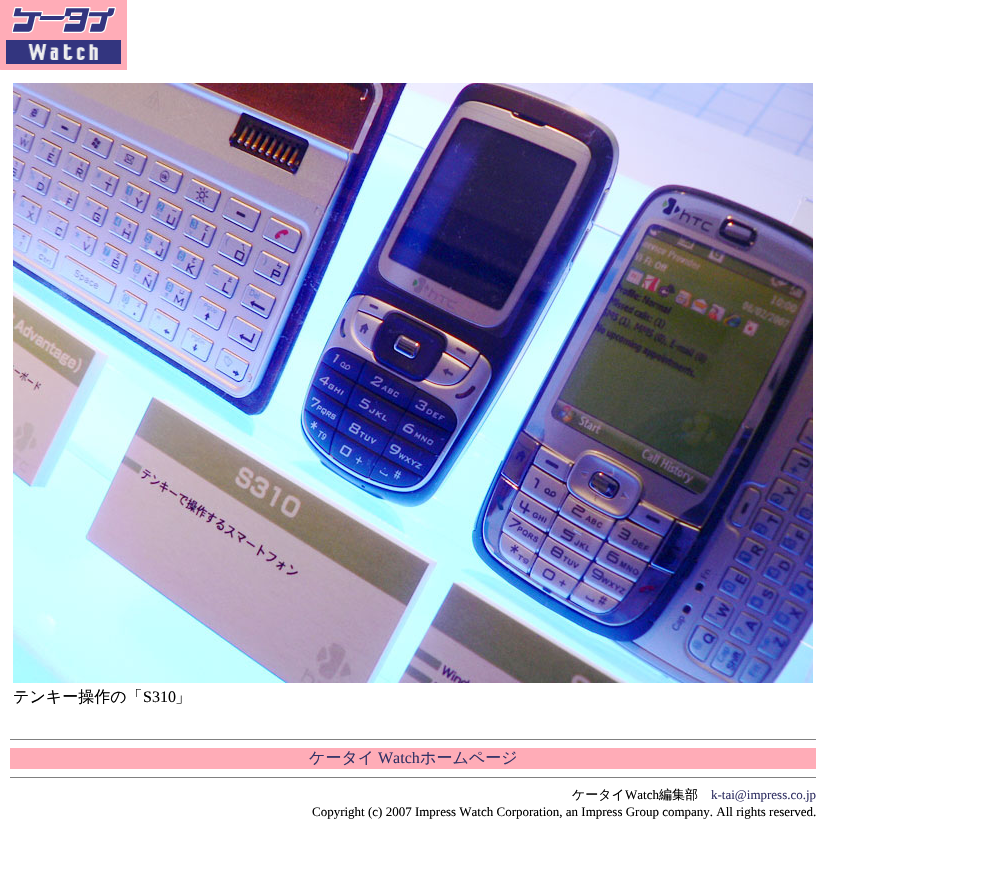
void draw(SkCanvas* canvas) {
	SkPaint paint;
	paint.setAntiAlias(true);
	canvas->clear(0xffffffff);
	paint.setColor(0xffffacb7);
	canvas->drawRect(SkRect::MakeXYWH(0, 0, 127, 70), paint);
	canvas->drawImageRect(SkImages::DeferredFromEncodedData(SkData::MakeFromFileName("img1.png")), SkRect::MakeXYWH(0, 5, 121, 65), SkSamplingOptions());
	canvas->drawImageRect(SkImages::DeferredFromEncodedData(SkData::MakeFromFileName("img2.png")), SkRect::MakeXYWH(13, 83, 800, 600), SkSamplingOptions());
	SkFont f1(fontMgr->matchFamilyStyle("WenQuanYi Zen Hei", SkFontStyle(500, SkFontStyle::kNormal_Width, SkFontStyle::kUpright_Slant)), 16);
	f1.setSubpixel(true);
	paint.setColor(0xff000000);
	canvas->drawString("テンキー操作の「", 13, 702, f1, paint);
	SkFont f2(fontMgr->matchFamilyStyle("Liberation Serif", SkFontStyle::Normal()), 16);
	f2.setSubpixel(true);
	canvas->drawString("S310", 143, 702, f2, paint);
	canvas->drawString("」", 175, 702, f1, paint);
	paint.setColor(0xff808080);
	canvas->drawRect(SkRect::MakeXYWH(10, 739, 806, 1), paint);
	paint.setColor(0xffffacb7);
	canvas->drawRect(SkRect::MakeXYWH(10, 748, 806, 21), paint);
	paint.setColor(0xff333366);
	canvas->drawString("ケータイ", 309, 763, f1, paint);
	canvas->drawString("Watch", 378, 763, f2, paint);
	canvas->drawString("ホームページ", 420, 763, f1, paint);
	paint.setColor(0xff808080);
	canvas->drawRect(SkRect::MakeXYWH(10, 777, 806, 1), paint);
	SkFont f3(fontMgr->matchFamilyStyle("WenQuanYi Zen Hei", SkFontStyle(500, SkFontStyle::kNormal_Width, SkFontStyle::kUpright_Slant)), 13);
	f3.setSubpixel(true);
	paint.setColor(0xff000000);
	canvas->drawString("ケータイ", 572, 799, f3, paint);
	SkFont f4(fontMgr->matchFamilyStyle("Liberation Serif", SkFontStyle::Normal()), 13);
	f4.setSubpixel(true);
	canvas->drawString("Watch", 625, 799, f4, paint);
	canvas->drawString("編集部", 659, 799, f3, paint);
	paint.setColor(0xff333366);
	canvas->drawString("k-tai@impress.co.jp", 711, 799, f4, paint);
	paint.setColor(0xff000000);
	canvas->drawString("Copyright (c) 2007 Impress Watch Corporation, an Impress Group company. All rights reserved.", 312, 816, f4, paint);
}
